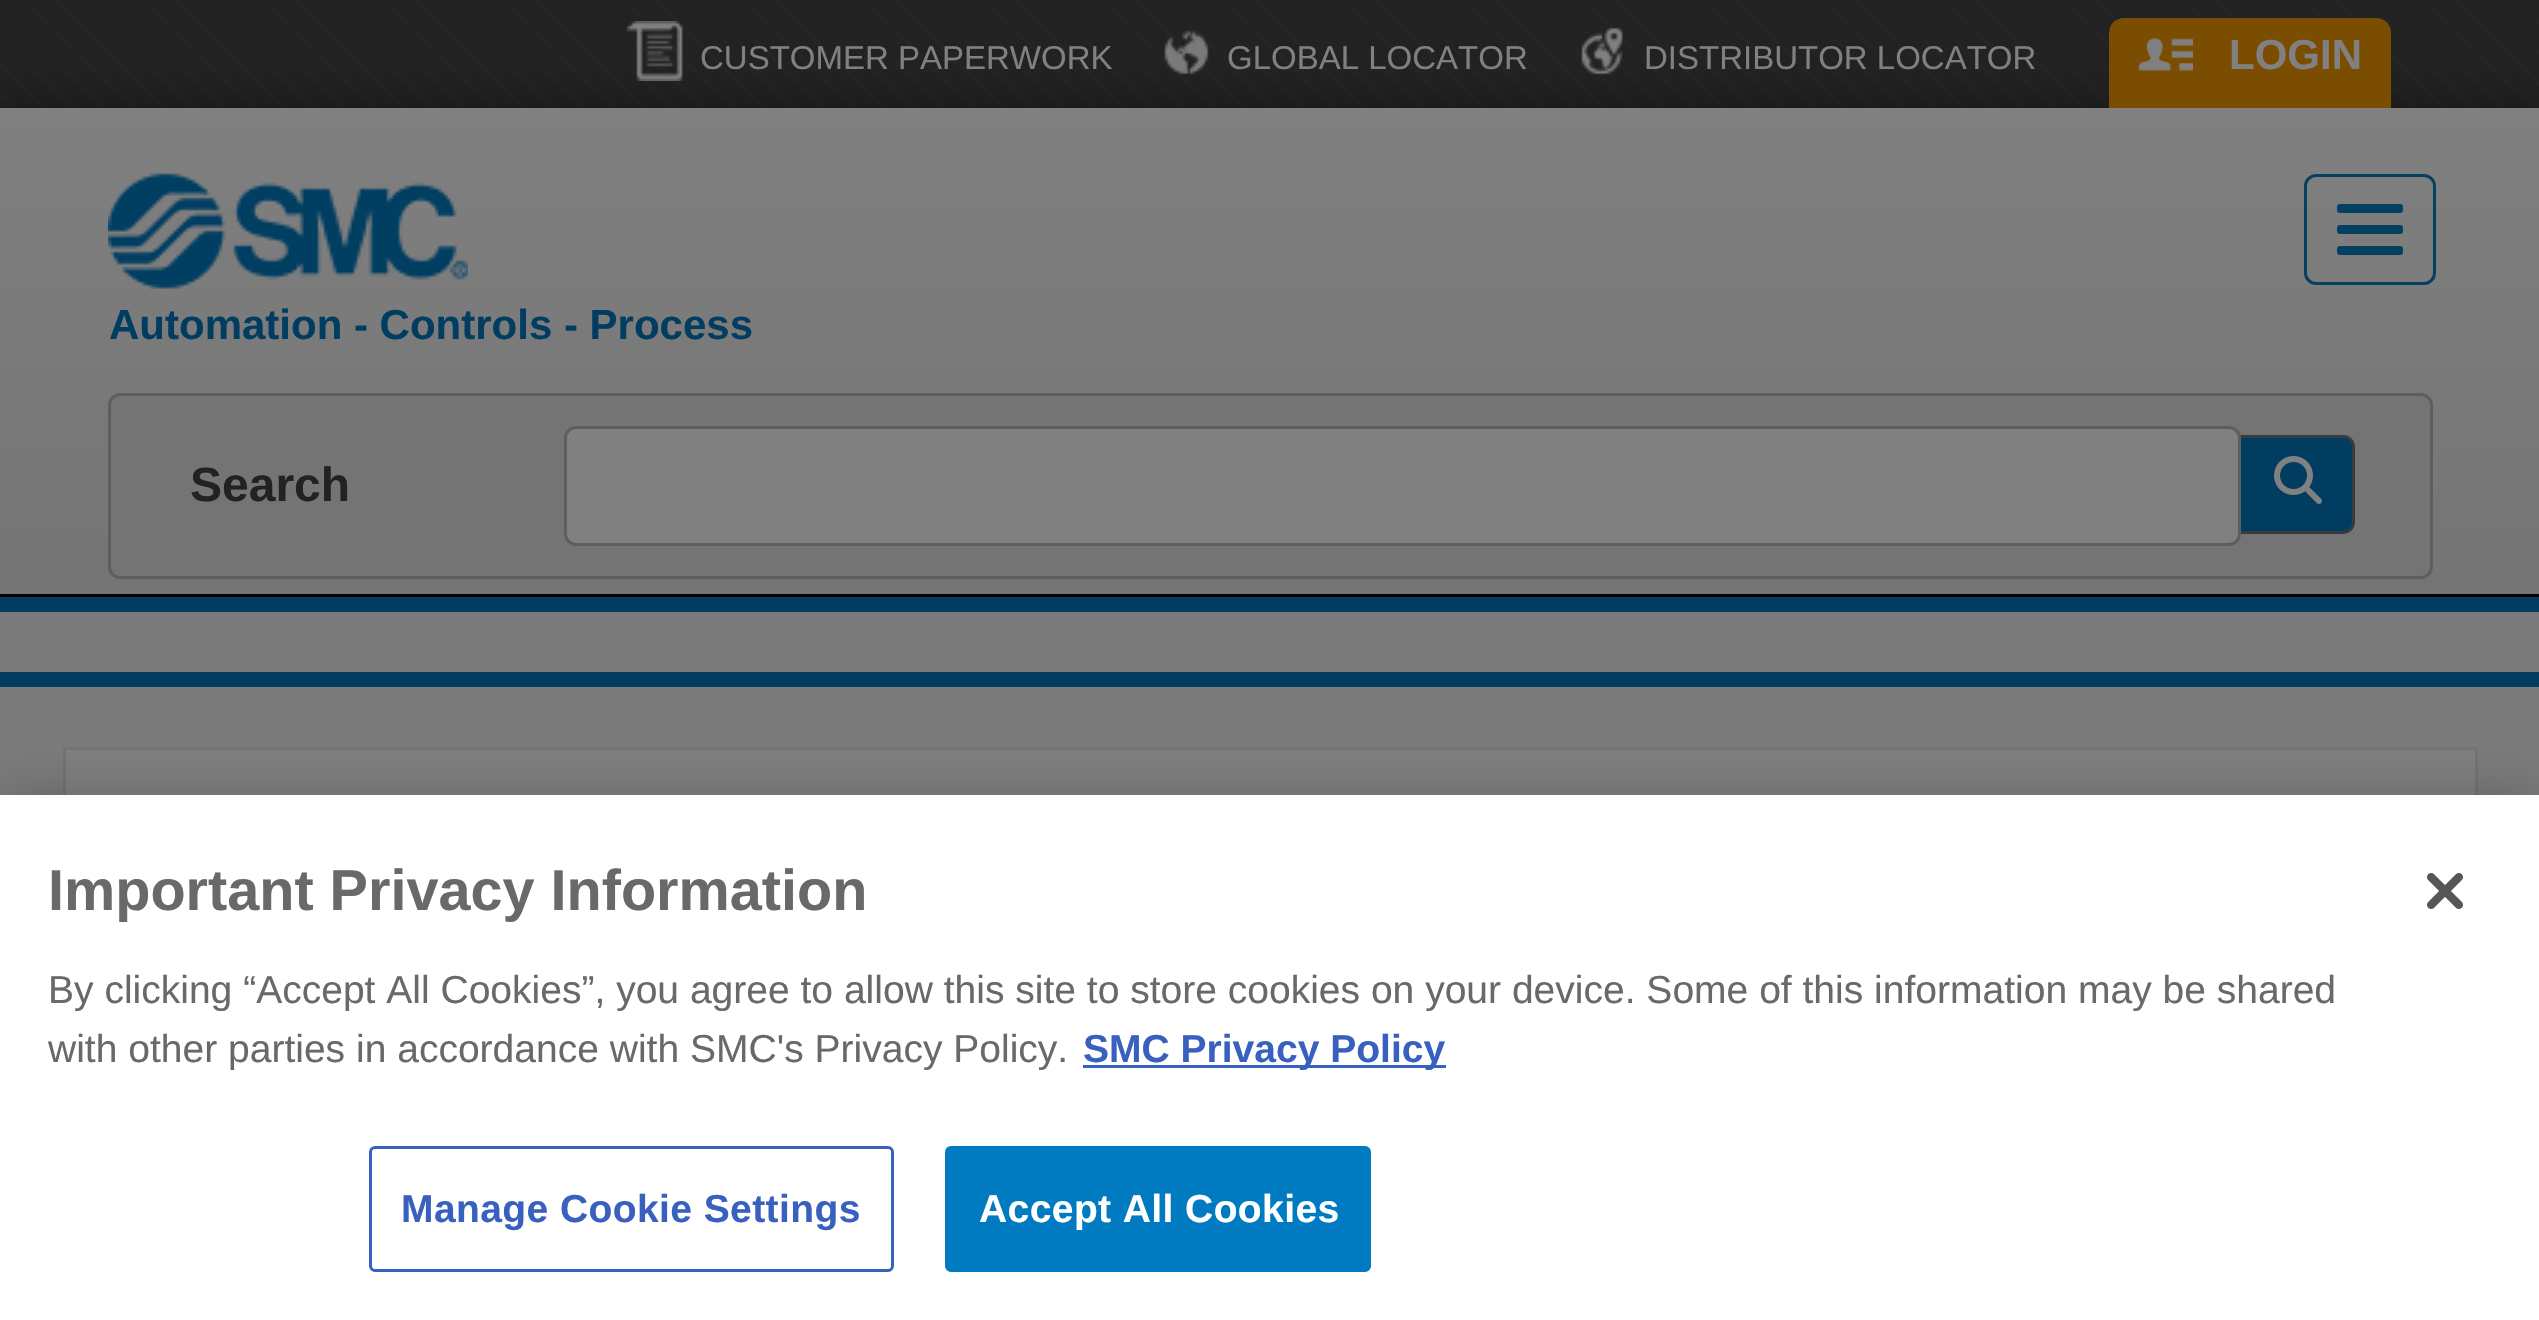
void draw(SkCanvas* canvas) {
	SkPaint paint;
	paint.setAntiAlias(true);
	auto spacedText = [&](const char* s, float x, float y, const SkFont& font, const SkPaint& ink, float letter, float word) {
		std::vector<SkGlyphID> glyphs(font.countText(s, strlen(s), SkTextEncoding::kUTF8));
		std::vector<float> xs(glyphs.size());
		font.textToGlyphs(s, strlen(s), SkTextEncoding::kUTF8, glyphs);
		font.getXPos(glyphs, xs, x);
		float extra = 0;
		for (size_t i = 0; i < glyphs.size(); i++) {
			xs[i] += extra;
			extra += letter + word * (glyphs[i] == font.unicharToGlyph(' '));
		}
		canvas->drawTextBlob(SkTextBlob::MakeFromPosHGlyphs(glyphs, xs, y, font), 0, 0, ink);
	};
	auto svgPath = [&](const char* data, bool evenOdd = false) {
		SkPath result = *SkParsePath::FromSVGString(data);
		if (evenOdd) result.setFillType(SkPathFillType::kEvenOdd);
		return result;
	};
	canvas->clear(0xffffffff);
	canvas->drawImageRect(SkImages::DeferredFromEncodedData(SkData::MakeFromFileName("img1.png")), SkRect::MakeXYWH(0, 0, 2539, 108), SkSamplingOptions());
	paint.setColor(0x40000000);
	paint.setMaskFilter(SkMaskFilter::MakeBlur(kNormal_SkBlurStyle, 15));
	canvas->drawRect(SkRect::MakeXYWH(-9, 99, 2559, 507), paint);
	paint.setMaskFilter(nullptr);
	canvas->drawImageRect(SkImages::DeferredFromEncodedData(SkData::MakeFromFileName("img2.png")), SkRect::MakeXYWH(627, 21, 56, 60), SkSamplingOptions());
	SkFont f1(fontMgr->matchFamilyStyle("Liberation Sans", SkFontStyle::Normal()), 33);
	f1.setSubpixel(true);
	paint.setColor(0xff808080);
	canvas->drawString("CUSTOMER PAPERWORK", 700, 69, f1, paint);
	canvas->drawImageRect(SkImages::DeferredFromEncodedData(SkData::MakeFromFileName("img3.png")), SkRect::MakeXYWH(1164, 30, 45, 45), SkSamplingOptions());
	canvas->drawString("GLOBAL LOCATOR", 1227, 69, f1, paint);
	canvas->drawImageRect(SkImages::DeferredFromEncodedData(SkData::MakeFromFileName("img4.png")), SkRect::MakeXYWH(1581, 27, 42, 48), SkSamplingOptions());
	canvas->drawString("DISTRIBUTOR LOCATOR", 1644, 69, f1, paint);
	paint.setColor(0xff7a4d00);
	canvas->drawPath(svgPath("M2124 18H2376C2384.5 18 2391 24.5 2391 33V108H2109V33C2109 24.5 2115.5 18 2124 18Z"), paint);
	canvas->drawImageRect(SkImages::DeferredFromEncodedData(SkData::MakeFromFileName("img5.png")), SkRect::MakeXYWH(2139, 38, 54, 33), SkSamplingOptions());
	SkFont f2(fontMgr->matchFamilyStyle("Liberation Sans", SkFontStyle::Bold()), 42);
	f2.setSubpixel(true);
	paint.setColor(0xff808080);
	canvas->drawString("LOGIN", 2229, 69, f2, paint);
	{
		const SkColor colors[] = {0xff808080, 0xff747474};
		const float stops[] = {0, 1};
		const SkPoint ends[] = {{1271, 108}, {1271, 594}};
		paint.setShader(SkGradientShader::MakeLinear(ends, colors, stops, 2, SkTileMode::kClamp));
		paint.setAlpha(255);
	}
	canvas->drawRect(SkRect::MakeXYWH(0, 108, 2539, 486), paint);
	paint.setShader(nullptr);
	paint.setColor(0xff000000);
	canvas->drawRect(SkRect::MakeXYWH(0, 594, 2539, 3), paint);
	paint.setStroke(true);
	paint.setStrokeWidth(3);
	paint.setColor(0xff04405f);
	canvas->drawRoundRect(SkRect::MakeXYWH(2305.5, 175.5, 129, 108), 10.5, 10.5, paint);
	paint.setStroke(false);
	canvas->drawRoundRect(SkRect::MakeXYWH(2337, 204, 66, 9), 3, 3, paint);
	canvas->drawRoundRect(SkRect::MakeXYWH(2337, 225, 66, 9), 3, 3, paint);
	canvas->drawRoundRect(SkRect::MakeXYWH(2337, 246, 66, 9), 3, 3, paint);
	canvas->drawImageRect(SkImages::DeferredFromEncodedData(SkData::MakeFromFileName("img6.png")), SkRect::MakeXYWH(108, 173, 360, 116), SkSamplingOptions());
	paint.setColor(0xff003d60);
	canvas->drawString("Automation - Controls - Process", 109, 339, f2, paint);
	paint.setColor(0xff747474);
	canvas->drawRoundRect(SkRect::MakeXYWH(109.5, 394.5, 2322, 183), 10.5, 10.5, paint);
	paint.setStroke(true);
	paint.setColor(0xff5e5e5e);
	canvas->drawRoundRect(SkRect::MakeXYWH(109.5, 394.5, 2322, 183), 10.5, 10.5, paint);
	SkFont f3(fontMgr->matchFamilyStyle("Liberation Sans", SkFontStyle::Bold()), 48);
	f3.setSubpixel(true);
	paint.setStroke(false);
	paint.setColor(0xff222222);
	canvas->drawString("Search", 190, 501, f3, paint);
	paint.setColor(0xff003d60);
	canvas->drawPath(svgPath("M2236.5 436.5H2343C2349 436.5 2353.5 441 2353.5 447V522C2353.5 528 2349 532.5 2343 532.5H2236.5Z"), paint);
	paint.setStroke(true);
	paint.setColor(0xff363b3f);
	canvas->drawPath(svgPath("M2236.5 436.5H2343C2349 436.5 2353.5 441 2353.5 447V522C2353.5 528 2349 532.5 2343 532.5H2236.5Z"), paint);
	paint.setStroke(false);
	paint.setColor(0xff808080);
	canvas->drawRoundRect(SkRect::MakeXYWH(565.5, 427.5, 1674, 117), 10.5, 10.5, paint);
	paint.setStroke(true);
	paint.setColor(0xff5e5e5e);
	canvas->drawRoundRect(SkRect::MakeXYWH(565.5, 427.5, 1674, 117), 10.5, 10.5, paint);
	canvas->drawImageRect(SkImages::DeferredFromEncodedData(SkData::MakeFromFileName("img7.png")), SkRect::MakeXYWH(2274, 456, 48, 48), SkSamplingOptions());
	paint.setStroke(false);
	paint.setColor(0xff7b7b7b);
	canvas->drawRect(SkRect::MakeXYWH(0, 612, 2539, 183), paint);
	paint.setColor(0xff003d60);
	canvas->drawRect(SkRect::MakeXYWH(0, 597, 2539, 15), paint);
	canvas->drawRect(SkRect::MakeXYWH(0, 672, 2539, 15), paint);
	paint.setColor(0xff808080);
	canvas->drawRect(SkRect::MakeXYWH(66, 750, 2409, 45), paint);
	paint.setStroke(true);
	paint.setColor(0xff747474);
	canvas->drawRect(SkRect::MakeXYWH(64.5, 748.5, 2412, 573), paint);
	paint.setStroke(false);
	paint.setColor(0x33000000);
	paint.setMaskFilter(SkMaskFilter::MakeBlur(kNormal_SkBlurStyle, 27));
	canvas->drawRect(SkRect::MakeXYWH(0, 795, 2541, 525), paint);
	paint.setMaskFilter(nullptr);
	paint.setColor(0xffffffff);
	canvas->drawRect(SkRect::MakeXYWH(0, 795, 2539, 525), paint);
	SkFont f4(fontMgr->matchFamilyStyle("Liberation Sans", SkFontStyle::Bold()), 57.6);
	f4.setSubpixel(true);
	paint.setColor(0xff696969);
	canvas->drawString("Important Privacy Information", 48, 910, f4, paint);
	SkFont f5(fontMgr->matchFamilyStyle("Liberation Sans", SkFontStyle::Normal()), 39.02);
	f5.setSubpixel(true);
	canvas->drawString("By clicking “Accept All Cookies”, you agree to allow this site to store cookies on your device. Some of this information may be shared", 48, 1003, f5, paint);
	canvas->drawString("with other parties in accordance with SMC's Privacy Policy.", 48, 1062, f5, paint);
	paint.setColor(0xff3860be);
	canvas->drawRect(SkRect::MakeXYWH(1083, 1065, 363, 3), paint);
	SkFont f6(fontMgr->matchFamilyStyle("Liberation Sans", SkFontStyle::Bold()), 39.02);
	f6.setSubpixel(true);
	canvas->drawString("SMC Privacy Policy", 1083, 1062, f6, paint);
	paint.setStroke(true);
	canvas->drawRoundRect(SkRect::MakeXYWH(370.5, 1147.5, 522, 123), 4.5, 4.5, paint);
	paint.setStroke(false);
	spacedText("Manage Cookie Settings", 401, 1222, f6, paint, 0.4, 0);
	paint.setColor(0xff007bc2);
	canvas->drawRoundRect(SkRect::MakeXYWH(946.5, 1147.5, 423, 123), 4.5, 4.5, paint);
	paint.setStroke(true);
	canvas->drawRoundRect(SkRect::MakeXYWH(946.5, 1147.5, 423, 123), 4.5, 4.5, paint);
	paint.setStroke(false);
	paint.setColor(0xffffffff);
	spacedText("Accept All Cookies", 979, 1222, f6, paint, 0.4, 0);
	canvas->drawImageRect(SkImages::DeferredFromEncodedData(SkData::MakeFromFileName("img8.png")), SkRect::MakeXYWH(2427, 873, 36, 36), SkSamplingOptions());
}
